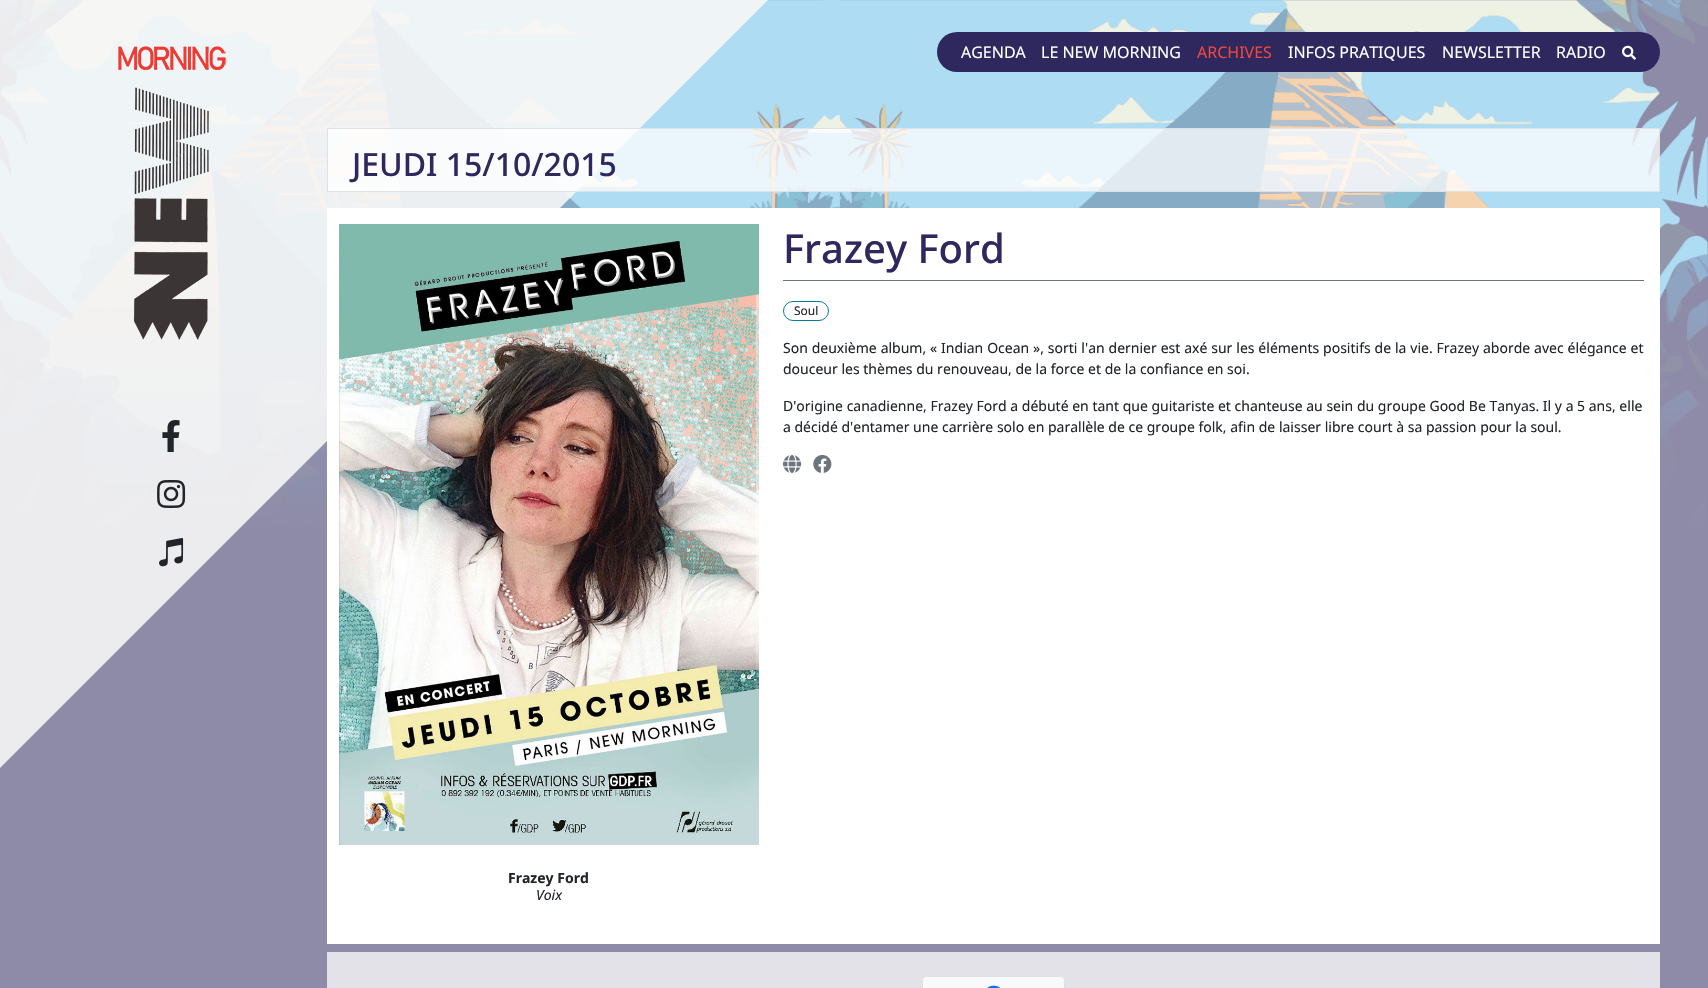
void draw(SkCanvas* canvas) {
	SkPaint paint;
	paint.setAntiAlias(true);
	auto spacedText = [&](const char* s, float x, float y, const SkFont& font, const SkPaint& ink, float letter, float word) {
		std::vector<SkGlyphID> glyphs(font.countText(s, strlen(s), SkTextEncoding::kUTF8));
		std::vector<float> xs(glyphs.size());
		font.textToGlyphs(s, strlen(s), SkTextEncoding::kUTF8, glyphs);
		font.getXPos(glyphs, xs, x);
		float extra = 0;
		for (size_t i = 0; i < glyphs.size(); i++) {
			xs[i] += extra;
			extra += letter + word * (glyphs[i] == font.unicharToGlyph(' '));
		}
		canvas->drawTextBlob(SkTextBlob::MakeFromPosHGlyphs(glyphs, xs, y, font), 0, 0, ink);
	};
	auto svgPath = [&](const char* data, bool evenOdd = false) {
		SkPath result = *SkParsePath::FromSVGString(data);
		if (evenOdd) result.setFillType(SkPathFillType::kEvenOdd);
		return result;
	};
	canvas->clear(0xffffffff);
	canvas->drawImageRect(SkImages::DeferredFromEncodedData(SkData::MakeFromFileName("img1.png")), SkRect::MakeXYWH(0, 0, 1708, 988), SkSamplingOptions());
	paint.setColor(0xe6f6f6f6);
	canvas->drawPath(svgPath("M0 0H768L0 768Z"), paint);
	canvas->drawImageRect(SkImages::DeferredFromEncodedData(SkData::MakeFromFileName("img2.png")), SkRect::MakeXYWH(118, 46, 108, 294), SkSamplingOptions());
	canvas->drawImageRect(SkImages::DeferredFromEncodedData(SkData::MakeFromFileName("img3.png")), SkRect::MakeXYWH(162, 420, 18, 32), SkSamplingOptions());
	canvas->drawImageRect(SkImages::DeferredFromEncodedData(SkData::MakeFromFileName("img4.png")), SkRect::MakeXYWH(157, 480, 29, 28), SkSamplingOptions());
	canvas->drawImageRect(SkImages::DeferredFromEncodedData(SkData::MakeFromFileName("img5.png")), SkRect::MakeXYWH(159, 538, 25, 29), SkSamplingOptions());
	paint.setColor(0xff2e285e);
	canvas->drawRoundRect(SkRect::MakeXYWH(937, 32, 723, 40), 20, 20, paint);
	SkFont f1(fontMgr->matchFamilyStyle("Noto Sans", SkFontStyle::Normal()), 16);
	f1.setSubpixel(true);
	paint.setColor(0xffffffff);
	canvas->drawString("AGENDA", 961, 58, f1, paint);
	canvas->drawString("LE NEW MORNING", 1041, 58, f1, paint);
	paint.setColor(0xffef463e);
	canvas->drawString("ARCHIVES", 1197, 58, f1, paint);
	paint.setColor(0xffffffff);
	canvas->drawString("INFOS PRATIQUES", 1288, 58, f1, paint);
	canvas->drawString("NEWSLETTER", 1442, 58, f1, paint);
	canvas->drawString("RADIO", 1556, 58, f1, paint);
	canvas->drawImageRect(SkImages::DeferredFromEncodedData(SkData::MakeFromFileName("img6.png")), SkRect::MakeXYWH(1622, 45, 14, 15), SkSamplingOptions());
	paint.setColor(0xbfffffff);
	canvas->drawRect(SkRect::MakeXYWH(327.5, 128.5, 1332, 63), paint);
	paint.setStroke(true);
	paint.setStrokeWidth(1);
	paint.setColor(0xffdee2e6);
	canvas->drawRect(SkRect::MakeXYWH(327.5, 128.5, 1332, 63), paint);
	SkFont f2(fontMgr->matchFamilyStyle("Noto Sans", SkFontStyle(500, SkFontStyle::kNormal_Width, SkFontStyle::kUpright_Slant)), 32);
	f2.setSubpixel(true);
	paint.setStroke(false);
	paint.setColor(0xff2e285e);
	canvas->drawString("JEUDI 15/10/2015", 352, 176, f2, paint);
	paint.setColor(0xffffffff);
	canvas->drawRect(SkRect::MakeXYWH(327, 208, 1333, 736), paint);
	SkFont f3(fontMgr->matchFamilyStyle("Noto Sans", SkFontStyle(500, SkFontStyle::kNormal_Width, SkFontStyle::kUpright_Slant)), 40);
	f3.setSubpixel(true);
	paint.setColor(0xff2e285e);
	canvas->drawString("Frazey Ford", 783, 263, f3, paint);
	paint.setColor(0xff6c757d);
	canvas->drawRect(SkRect::MakeXYWH(783, 280, 861, 1), paint);
	paint.setStroke(true);
	paint.setColor(0xff007ca3);
	canvas->drawRoundRect(SkRect::MakeXYWH(783.5, 301.5, 45, 19), 9.5, 9.5, paint);
	SkFont f4(fontMgr->matchFamilyStyle("Noto Sans", SkFontStyle::Normal()), 12);
	f4.setSubpixel(true);
	paint.setStroke(false);
	paint.setColor(0xff212529);
	canvas->drawString("Soul", 794, 315, f4, paint);
	SkFont f5(fontMgr->matchFamilyStyle("Noto Sans", SkFontStyle::Normal()), 14);
	f5.setSubpixel(true);
	spacedText("Son deuxième album, « Indian Ocean », sorti l'an dernier est axé sur les éléments positifs de la vie. Frazey aborde avec élégance et", 783, 353, f5, paint, 0, 0.25);
	canvas->drawString("douceur les thèmes du renouveau, de la force et de la confiance en soi.", 783, 374, f5, paint);
	canvas->drawString("D'origine canadienne, Frazey Ford a débuté en tant que guitariste et chanteuse au sein du groupe Good Be Tanyas. Il y a 5 ans, elle", 783, 411, f5, paint);
	canvas->drawString("a décidé d'entamer une carrière solo en parallèle de ce groupe folk, afin de laisser libre court à sa passion pour la soul.", 783, 432, f5, paint);
	canvas->drawImageRect(SkImages::DeferredFromEncodedData(SkData::MakeFromFileName("img7.png")), SkRect::MakeXYWH(783, 455, 19, 18), SkSamplingOptions());
	canvas->drawImageRect(SkImages::DeferredFromEncodedData(SkData::MakeFromFileName("img8.png")), SkRect::MakeXYWH(813, 455, 19, 18), SkSamplingOptions());
	canvas->drawImageRect(SkImages::DeferredFromEncodedData(SkData::MakeFromFileName("img9.png")), SkRect::MakeXYWH(339, 224, 420, 621), SkSamplingOptions());
	SkFont f6(fontMgr->matchFamilyStyle("Noto Sans", SkFontStyle::Bold()), 14);
	f6.setSubpixel(true);
	canvas->drawString("Frazey Ford", 508, 883, f6, paint);
	SkFont f7(fontMgr->matchFamilyStyle("Noto Sans", SkFontStyle::Italic()), 14);
	f7.setSubpixel(true);
	canvas->drawString("Voix", 536, 900, f7, paint);
	paint.setColor(0xffe3e2e9);
	canvas->drawRect(SkRect::MakeXYWH(327, 952, 1333, 36), paint);
	paint.setColor(0xfff8f9fa);
	canvas->drawRoundRect(SkRect::MakeXYWH(922.5, 976.5, 142, 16), 3.5, 3.5, paint);
	paint.setStroke(true);
	paint.setColor(0xffdee2e6);
	canvas->drawRoundRect(SkRect::MakeXYWH(922.5, 976.5, 142, 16), 3.5, 3.5, paint);
	canvas->drawImageRect(SkImages::DeferredFromEncodedData(SkData::MakeFromFileName("img10.png")), SkRect::MakeXYWH(987, 985, 13, 3), SkSamplingOptions());
}
